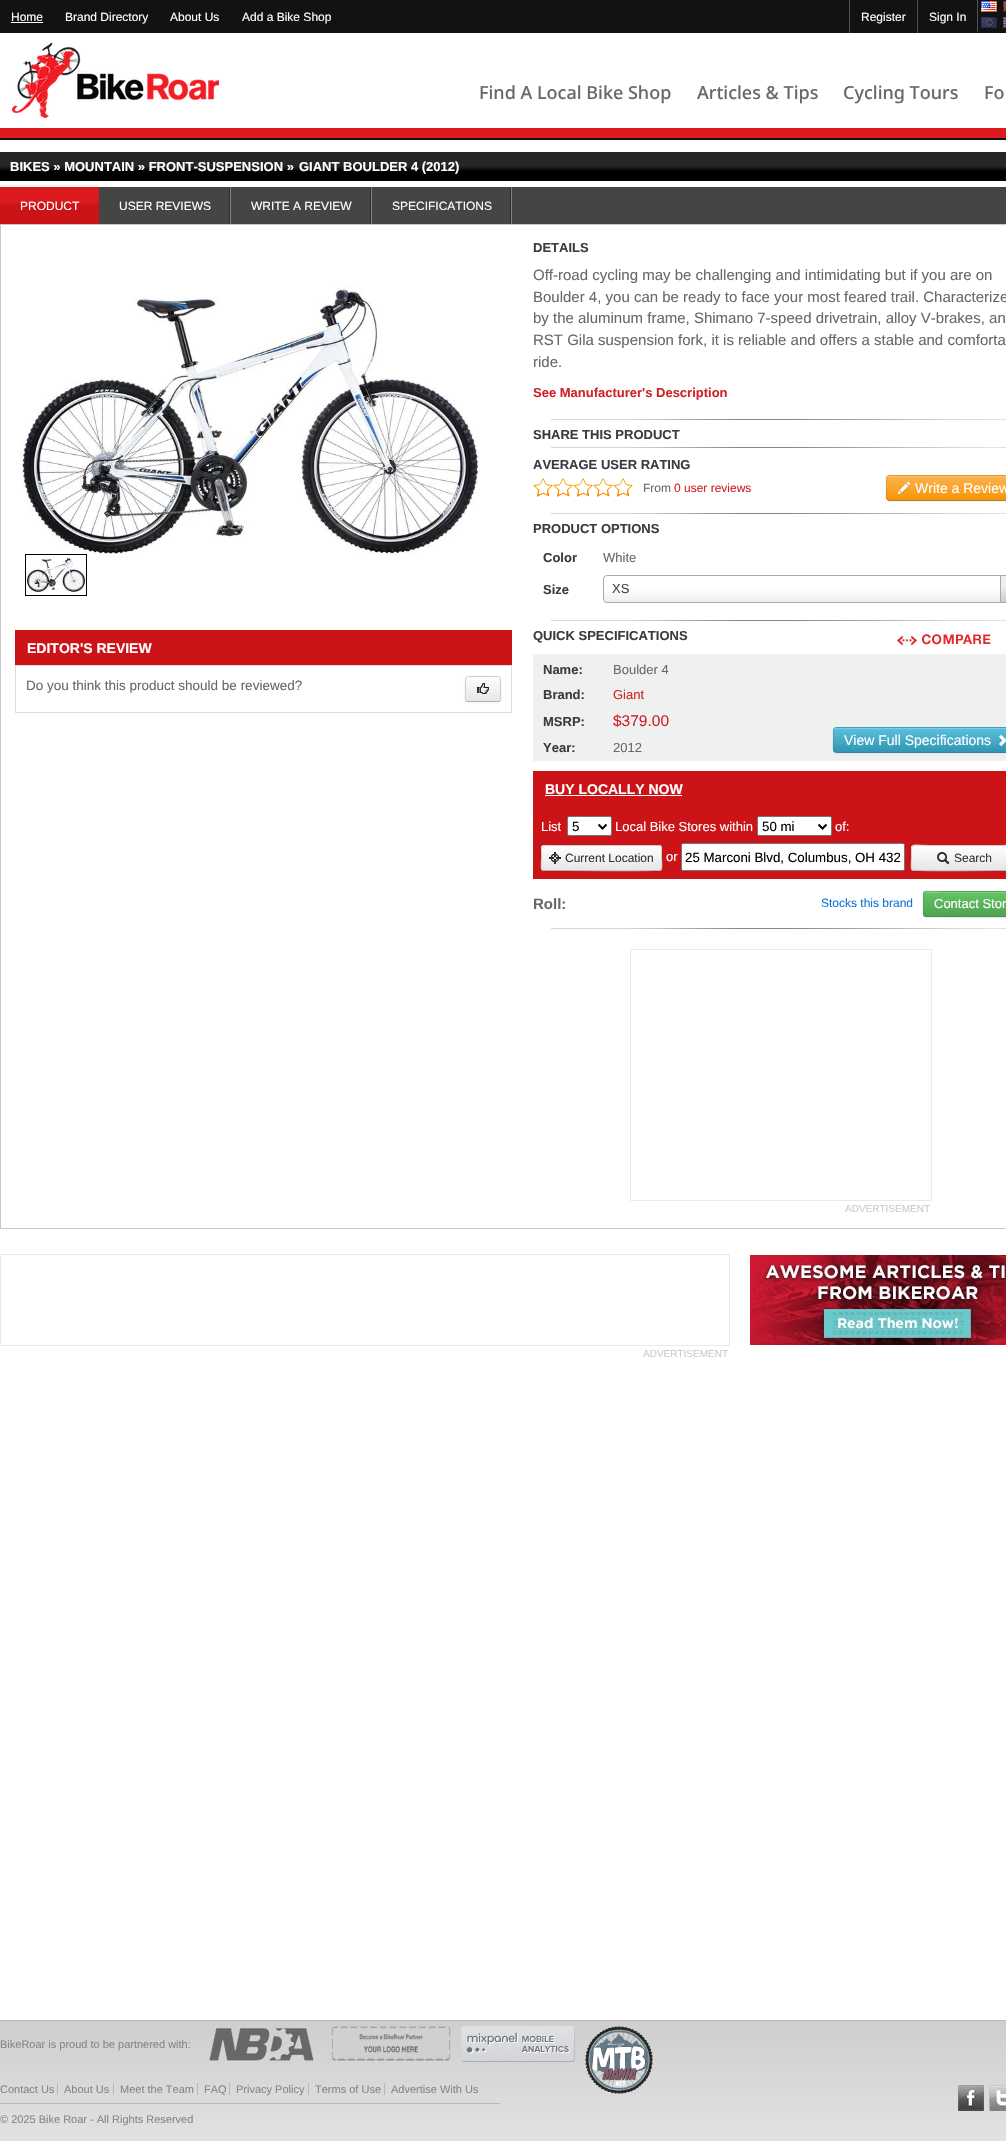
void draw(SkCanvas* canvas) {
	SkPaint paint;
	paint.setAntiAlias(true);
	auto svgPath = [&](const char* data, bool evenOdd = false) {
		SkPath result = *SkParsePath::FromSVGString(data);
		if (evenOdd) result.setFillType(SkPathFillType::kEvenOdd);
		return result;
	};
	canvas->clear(0xffffffff);
	paint.setColor(0xff121212);
	canvas->drawRect(SkRect::MakeXYWH(0, 0, 1006, 33), paint);
	SkFont f1(fontMgr->matchFamilyStyle("Liberation Sans", SkFontStyle::Normal()), 12);
	f1.setSubpixel(true);
	paint.setColor(0xffffffff);
	canvas->drawString("Home", 11, 21, f1, paint);
	canvas->drawRect(SkRect::MakeXYWH(11, 22, 32, 1), paint);
	canvas->drawString("Brand Directory", 65, 21, f1, paint);
	canvas->drawString("About Us", 170, 21, f1, paint);
	canvas->drawString("Add a Bike Shop", 242, 21, f1, paint);
	paint.setColor(0xff505050);
	canvas->drawRect(SkRect::MakeXYWH(849, 0, 1, 33), paint);
	paint.setColor(0xffffffff);
	canvas->drawString("Register", 861, 21, f1, paint);
	paint.setColor(0xff505050);
	canvas->drawRect(SkRect::MakeXYWH(917, 0, 1, 33), paint);
	paint.setColor(0xffffffff);
	canvas->drawString("Sign In", 929, 21, f1, paint);
	paint.setColor(0xff505050);
	canvas->drawRect(SkRect::MakeXYWH(977, 0, 1, 32), paint);
	canvas->drawImageRect(SkImages::DeferredFromEncodedData(SkData::MakeFromFileName("img1.png")), SkRect::MakeXYWH(981, 1, 16, 11), SkSamplingOptions());
	canvas->drawImageRect(SkImages::DeferredFromEncodedData(SkData::MakeFromFileName("img2.png")), SkRect::MakeXYWH(1003, 1, 3, 11), SkSamplingOptions());
	canvas->drawImageRect(SkImages::DeferredFromEncodedData(SkData::MakeFromFileName("img3.png")), SkRect::MakeXYWH(981, 17, 16, 11), SkSamplingOptions());
	canvas->drawImageRect(SkImages::DeferredFromEncodedData(SkData::MakeFromFileName("img4.png")), SkRect::MakeXYWH(1003, 17, 3, 11), SkSamplingOptions());
	canvas->drawImageRect(SkImages::DeferredFromEncodedData(SkData::MakeFromFileName("img5.png")), SkRect::MakeXYWH(12, 43, 207, 75), SkSamplingOptions());
	SkFont f2(fontMgr->matchFamilyStyle("Noto Sans", SkFontStyle(500, SkFontStyle::kNormal_Width, SkFontStyle::kUpright_Slant)), 18);
	f2.setSubpixel(true);
	paint.setColor(0xff686867);
	canvas->drawString("Find A Local Bike Shop", 479, 99, f2, paint);
	canvas->drawString("Articles & Tips", 697, 99, f2, paint);
	canvas->drawString("Cycling Tours", 843, 99, f2, paint);
	canvas->drawString("Fo", 984, 99, f2, paint);
	paint.setColor(0xffdd1a1e);
	canvas->drawRect(SkRect::MakeXYWH(0, 128, 1006, 10), paint);
	paint.setColor(0xff121212);
	canvas->drawRect(SkRect::MakeXYWH(0, 138, 1006, 2), paint);
	canvas->drawImageRect(SkImages::DeferredFromEncodedData(SkData::MakeFromFileName("img6.png")), SkRect::MakeXYWH(0, 152, 1006, 29), SkSamplingOptions());
	SkFont f3(fontMgr->matchFamilyStyle("Liberation Sans", SkFontStyle::Bold()), 13);
	f3.setSubpixel(true);
	paint.setColor(0xffffffff);
	canvas->drawString("BIKES » MOUNTAIN » FRONT-SUSPENSION »", 10, 171, f3, paint);
	canvas->drawString("GIANT BOULDER 4 (2012)", 299, 171, f3, paint);
	paint.setColor(0xff454545);
	canvas->drawRect(SkRect::MakeXYWH(99, 187, 907, 37), paint);
	paint.setColor(0xffcc1317);
	canvas->drawRect(SkRect::MakeXYWH(0, 205, 99, 19), paint);
	canvas->drawImageRect(SkImages::DeferredFromEncodedData(SkData::MakeFromFileName("img7.png")), SkRect::MakeXYWH(0, 187, 99, 18), SkSamplingOptions());
	paint.setColor(0xffffffff);
	canvas->drawString("PRODUCT", 20, 210, f1, paint);
	canvas->drawImageRect(SkImages::DeferredFromEncodedData(SkData::MakeFromFileName("img8.png")), SkRect::MakeXYWH(229, 187, 2, 37), SkSamplingOptions());
	canvas->drawString("USER REVIEWS", 119, 210, f1, paint);
	canvas->drawImageRect(SkImages::DeferredFromEncodedData(SkData::MakeFromFileName("img8.png")), SkRect::MakeXYWH(370, 187, 2, 37), SkSamplingOptions());
	canvas->drawString("WRITE A REVIEW", 251, 210, f1, paint);
	canvas->drawImageRect(SkImages::DeferredFromEncodedData(SkData::MakeFromFileName("img8.png")), SkRect::MakeXYWH(510, 187, 2, 37), SkSamplingOptions());
	canvas->drawString("SPECIFICATIONS", 392, 210, f1, paint);
	paint.setStroke(true);
	paint.setStrokeWidth(1);
	paint.setColor(0xffc8c8c8);
	canvas->drawRect(SkRect::MakeXYWH(0.5, 224.5, 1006, 1004), paint);
	canvas->drawImageRect(SkImages::DeferredFromEncodedData(SkData::MakeFromFileName("img9.png")), SkRect::MakeXYWH(20, 286, 459, 272), SkSamplingOptions());
	paint.setStroke(false);
	paint.setColor(0xff000000);
	canvas->drawRect(SkRect::MakeXYWH(25, 554, 62, 42), paint);
	canvas->drawImageRect(SkImages::DeferredFromEncodedData(SkData::MakeFromFileName("img10.png")), SkRect::MakeXYWH(26, 555, 60, 40), SkSamplingOptions());
	paint.setColor(0xffcc1317);
	canvas->drawRect(SkRect::MakeXYWH(15, 630, 497, 35), paint);
	SkFont f4(fontMgr->matchFamilyStyle("Liberation Sans", SkFontStyle::Bold()), 14);
	f4.setSubpixel(true);
	paint.setColor(0xffffffff);
	canvas->drawString("EDITOR'S REVIEW", 27, 653, f4, paint);
	paint.setStroke(true);
	paint.setColor(0xffdddddd);
	canvas->drawRect(SkRect::MakeXYWH(15.5, 665.5, 496, 47), paint);
	SkFont f5(fontMgr->matchFamilyStyle("Liberation Sans", SkFontStyle::Normal()), 13.5);
	f5.setSubpixel(true);
	paint.setStroke(false);
	paint.setColor(0xff686867);
	canvas->drawString("Do you think this product should be reviewed?", 26, 690, f5, paint);
	paint.setColor(0x0d000000);
	paint.setMaskFilter(SkMaskFilter::MakeBlur(kNormal_SkBlurStyle, 1));
	canvas->drawRoundRect(SkRect::MakeXYWH(465, 677, 36, 26), 3, 3, paint);
	paint.setMaskFilter(nullptr);
	canvas->save();
	canvas->clipPath(svgPath("M468 676H498C499.5 676 501 677.5 501 679V699C501 700.5 499.5 702 498 702H468C466.5 702 465 700.5 465 699V679C465 677.5 466.5 676 468 676Z"), true);
	{
		const SkColor colors[] = {0xffffffff, 0xffe6e6e6};
		const float stops[] = {0, 1};
		const SkPoint ends[] = {{483, 677}, {483, 701}};
		paint.setShader(SkGradientShader::MakeLinear(ends, colors, stops, 2, SkTileMode::kClamp));
		paint.setAlpha(255);
	}
	canvas->drawRect(SkRect::MakeXYWH(465, 677, 36, 24), paint);
	canvas->restore();
	paint.setStroke(true);
	paint.setShader(nullptr);
	paint.setColor(0xffb3b3b3);
	canvas->drawPath(svgPath("M500 701C499.5 701 498.5 701.5 498 701.5H468C467.5 701.5 466.5 701 466 701"), paint);
	paint.setColor(0xffcccccc);
	canvas->drawPath(svgPath("M466 701C465 699.5 465.5 697 465.5 695.5V682.5C465.5 675.5 466 676.5 473 676.5H493C500 676.5 500.5 675.5 500.5 682.5V695.5C500.5 697 501 699.5 500 701"), paint);
	canvas->drawImageRect(SkImages::DeferredFromEncodedData(SkData::MakeFromFileName("img11.png")), SkRect::MakeXYWH(477, 683, 12, 12), SkSamplingOptions());
	canvas->drawImageRect(SkImages::DeferredFromEncodedData(SkData::MakeFromFileName("img12.png")), SkRect::MakeXYWH(551, 419, 455, 1), SkSamplingOptions());
	paint.setStroke(false);
	paint.setColor(0xff3c3c3c);
	canvas->drawString("DETAILS", 533, 252, f3, paint);
	SkFont f6(fontMgr->matchFamilyStyle("Liberation Sans", SkFontStyle::Normal()), 15);
	f6.setSubpixel(true);
	paint.setColor(0xff686867);
	canvas->drawString("Off-road cycling may be challenging and intimidating but if you are on", 533, 280, f6, paint);
	canvas->drawString("Boulder 4, you can be ready to face your most feared trail. Characterize", 533, 302, f6, paint);
	canvas->drawString("by the aluminum frame, Shimano 7-speed drivetrain, alloy V-brakes, an", 533, 323, f6, paint);
	canvas->drawString("RST Gila suspension fork, it is reliable and offers a stable and comforta", 533, 345, f6, paint);
	canvas->drawString("ride.", 533, 367, f6, paint);
	paint.setColor(0xffcf2326);
	canvas->drawString("See Manufacturer's Description", 533, 397, f3, paint);
	canvas->drawImageRect(SkImages::DeferredFromEncodedData(SkData::MakeFromFileName("img12.png")), SkRect::MakeXYWH(551, 447, 455, 1), SkSamplingOptions());
	paint.setColor(0xff3c3c3c);
	canvas->drawString("SHARE THIS PRODUCT", 533, 439, f3, paint);
	canvas->drawImageRect(SkImages::DeferredFromEncodedData(SkData::MakeFromFileName("img12.png")), SkRect::MakeXYWH(551, 513, 455, 1), SkSamplingOptions());
	canvas->drawString("AVERAGE USER RATING", 533, 469, f3, paint);
	canvas->drawImageRect(SkImages::DeferredFromEncodedData(SkData::MakeFromFileName("img13.png")), SkRect::MakeXYWH(533, 478, 100, 19), SkSamplingOptions());
	paint.setColor(0xff686867);
	canvas->drawString("From", 643, 492, f1, paint);
	paint.setColor(0xffcf2326);
	canvas->drawString("0 user reviews", 674, 492, f1, paint);
	paint.setColor(0x0d000000);
	paint.setMaskFilter(SkMaskFilter::MakeBlur(kNormal_SkBlurStyle, 1));
	canvas->drawRoundRect(SkRect::MakeXYWH(886, 476, 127, 26), 4, 4, paint);
	paint.setMaskFilter(nullptr);
	paint.setColor(0xfffaa732);
	canvas->drawRoundRect(SkRect::MakeXYWH(886, 475, 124, 26), 4, 4, paint);
	canvas->save();
	canvas->clipPath(svgPath("M890 475H1016C1018 475 1020 477 1020 479V497C1020 499 1018 501 1016 501H890C888 501 886 499 886 497V479C886 477 888 475 890 475Z"), true);
	{
		const SkColor colors[] = {0xfffbb450, 0xfff89406};
		const float stops[] = {0, 1};
		const SkPoint ends[] = {{953, 476}, {953, 500}};
		paint.setShader(SkGradientShader::MakeLinear(ends, colors, stops, 2, SkTileMode::kClamp));
		paint.setAlpha(255);
	}
	canvas->drawRect(SkRect::MakeXYWH(886, 476, 120, 24), paint);
	canvas->restore();
	paint.setShader(nullptr);
	paint.setColor(0x33ffffff);
	canvas->drawPath(svgPath("M890 477H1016C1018 477 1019 478 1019 480C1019 478 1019 476 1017 476H889C887 476 887 478 887 480C887 478 888 477 890 477Z"), paint);
	paint.setStroke(true);
	paint.setColor(0x40000000);
	canvas->drawPath(svgPath("M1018.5 499.5C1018 500 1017 500.5 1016 500.5H890C889 500.5 888 500 887.5 499.5"), paint);
	paint.setColor(0x1a000000);
	canvas->drawPath(svgPath("M887.5 499.5C885.5 497.5 886.5 490.5 886.5 488C886.5 485.5 884.5 475.5 890 475.5H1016C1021.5 475.5 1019.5 485.5 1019.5 488C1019.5 490.5 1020.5 497.5 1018.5 499.5"), paint);
	canvas->drawImageRect(SkImages::DeferredFromEncodedData(SkData::MakeFromFileName("img14.png")), SkRect::MakeXYWH(897, 481, 13, 14), SkSamplingOptions());
	SkFont f7(fontMgr->matchFamilyStyle("Liberation Sans", SkFontStyle::Normal()), 14);
	f7.setSubpixel(true);
	paint.setStroke(false);
	paint.setColor(0xffffffff);
	canvas->drawString("Write a Review", 915, 493, f7, paint);
	canvas->drawImageRect(SkImages::DeferredFromEncodedData(SkData::MakeFromFileName("img12.png")), SkRect::MakeXYWH(551, 620, 455, 1), SkSamplingOptions());
	paint.setColor(0xff3c3c3c);
	canvas->drawString("PRODUCT OPTIONS", 533, 533, f3, paint);
	canvas->drawString("Color", 543, 562, f3, paint);
	SkFont f8(fontMgr->matchFamilyStyle("Liberation Sans", SkFontStyle::Normal()), 13);
	f8.setSubpixel(true);
	paint.setColor(0xff686867);
	canvas->drawString("White", 603, 562, f8, paint);
	paint.setColor(0xff3c3c3c);
	canvas->drawString("Size", 543, 594, f3, paint);
	{
		const SkColor colors[] = {0xffeeeeee, 0xffffffff};
		const float stops[] = {0, 0.5};
		const SkPoint ends[] = {{812, 602}, {812, 576}};
		paint.setShader(SkGradientShader::MakeLinear(ends, colors, stops, 2, SkTileMode::kClamp));
		paint.setAlpha(255);
	}
	canvas->drawRoundRect(SkRect::MakeXYWH(604, 576, 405, 26), 3, 3, paint);
	paint.setStroke(true);
	paint.setShader(nullptr);
	paint.setColor(0xffaaaaaa);
	canvas->drawRoundRect(SkRect::MakeXYWH(603.5, 575.5, 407, 27), 3.5, 3.5, paint);
	paint.setStroke(false);
	paint.setColor(0xff444444);
	canvas->drawString("XS", 612, 593, f8, paint);
	{
		const SkColor colors[] = {0xffcccccc, 0xffeeeeee};
		const float stops[] = {0, 0.6};
		const SkPoint ends[] = {{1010, 602}, {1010, 576}};
		paint.setShader(SkGradientShader::MakeLinear(ends, colors, stops, 2, SkTileMode::kClamp));
		paint.setAlpha(255);
	}
	canvas->drawRect(SkRect::MakeXYWH(1001, 576, 5, 26), paint);
	paint.setShader(nullptr);
	paint.setColor(0xffaaaaaa);
	canvas->drawRect(SkRect::MakeXYWH(1000, 576, 1, 26), paint);
	paint.setColor(0xff3c3c3c);
	canvas->drawString("QUICK SPECIFICATIONS", 533, 640, f3, paint);
	canvas->drawImageRect(SkImages::DeferredFromEncodedData(SkData::MakeFromFileName("img15.png")), SkRect::MakeXYWH(897, 635, 20, 11), SkSamplingOptions());
	canvas->drawImageRect(SkImages::DeferredFromEncodedData(SkData::MakeFromFileName("img16.png")), SkRect::MakeXYWH(922, 634, 69, 11), SkSamplingOptions());
	paint.setColor(0xffeff0f0);
	canvas->drawRect(SkRect::MakeXYWH(533, 654, 473, 107), paint);
	paint.setColor(0xff3c3c3c);
	canvas->drawString("Name:", 543, 674, f3, paint);
	paint.setColor(0xff686867);
	canvas->drawString("Boulder 4", 613, 674, f8, paint);
	paint.setColor(0xff3c3c3c);
	canvas->drawString("Brand:", 543, 699, f3, paint);
	paint.setColor(0xffcf2326);
	canvas->drawString("Giant", 613, 699, f8, paint);
	paint.setColor(0xff3c3c3c);
	canvas->drawString("MSRP:", 543, 726, f3, paint);
	SkFont f9(fontMgr->matchFamilyStyle("Liberation Sans", SkFontStyle::Normal()), 15.5);
	f9.setSubpixel(true);
	paint.setColor(0xffcf2326);
	canvas->drawString("$379.00", 613, 726, f9, paint);
	paint.setColor(0xff3c3c3c);
	canvas->drawString("Year:", 543, 752, f3, paint);
	paint.setColor(0xff686867);
	canvas->drawString("2012", 613, 752, f8, paint);
	paint.setColor(0x0d000000);
	paint.setMaskFilter(SkMaskFilter::MakeBlur(kNormal_SkBlurStyle, 1));
	canvas->drawRoundRect(SkRect::MakeXYWH(833, 728, 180, 26), 4, 4, paint);
	paint.setMaskFilter(nullptr);
	paint.setColor(0xff49afcd);
	canvas->drawRoundRect(SkRect::MakeXYWH(833, 727, 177, 26), 4, 4, paint);
	canvas->save();
	canvas->clipPath(svgPath("M837 727H1016C1018 727 1020 729 1020 731V749C1020 751 1018 753 1016 753H837C835 753 833 751 833 749V731C833 729 835 727 837 727Z"), true);
	{
		const SkColor colors[] = {0xff5bc0de, 0xff2f96b4};
		const float stops[] = {0, 1};
		const SkPoint ends[] = {{927, 728}, {927, 752}};
		paint.setShader(SkGradientShader::MakeLinear(ends, colors, stops, 2, SkTileMode::kClamp));
		paint.setAlpha(255);
	}
	canvas->drawRect(SkRect::MakeXYWH(833, 728, 173, 24), paint);
	canvas->restore();
	paint.setShader(nullptr);
	paint.setColor(0xff7bcce4);
	canvas->drawPath(svgPath("M837 729H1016L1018 730L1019 732C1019 730 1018 728 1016 728H836C834 729 834 730 834 732C834 730 835 729 837 729Z"), paint);
	paint.setStroke(true);
	paint.setColor(0x40000000);
	canvas->drawPath(svgPath("M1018.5 751.5L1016 752.5H836.5L834.5 751.5"), paint);
	paint.setColor(0x1a000000);
	canvas->drawPath(svgPath("M834.5 751.5C832 749 833.5 740 833.5 737C833.5 734.5 832 727.5 837 727.5H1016C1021 727.5 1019.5 734.5 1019.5 737C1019.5 740 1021 749 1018.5 751.5"), paint);
	paint.setStroke(false);
	paint.setColor(0xffffffff);
	canvas->drawString("View Full Specifications", 844, 745, f7, paint);
	canvas->drawImageRect(SkImages::DeferredFromEncodedData(SkData::MakeFromFileName("img17.png")), SkRect::MakeXYWH(999, 735, 7, 12), SkSamplingOptions());
	paint.setColor(0xffcc1317);
	canvas->drawRect(SkRect::MakeXYWH(533, 771, 473, 108), paint);
	paint.setColor(0xffffffff);
	canvas->drawString("BUY LOCALLY NOW", 545, 794, f4, paint);
	canvas->drawRect(SkRect::MakeXYWH(545, 795, 137, 1), paint);
	canvas->drawString("List", 541, 831, f8, paint);
	canvas->drawRoundRect(SkRect::MakeXYWH(567.5, 816.5, 44, 19), 1.5, 1.5, paint);
	paint.setStroke(true);
	paint.setColor(0xff767676);
	canvas->drawRoundRect(SkRect::MakeXYWH(567.5, 816.5, 44, 19), 1.5, 1.5, paint);
	paint.setStrokeWidth(2);
	paint.setColor(0xff000000);
	canvas->drawPath(svgPath("M598.5 824.5L602.5 828.5L606.5 824.5"), paint);
	SkFont f10(fontMgr->matchFamilyStyle("Liberation Sans", SkFontStyle::Normal()), 13.3);
	f10.setSubpixel(true);
	paint.setStroke(false);
	canvas->drawString("5", 572, 831, f10, paint);
	paint.setColor(0xffffffff);
	canvas->drawString("Local Bike Stores within", 615, 831, f8, paint);
	canvas->drawRoundRect(SkRect::MakeXYWH(757.5, 816.5, 74, 19), 1.5, 1.5, paint);
	paint.setStroke(true);
	paint.setStrokeWidth(1);
	paint.setColor(0xff767676);
	canvas->drawRoundRect(SkRect::MakeXYWH(757.5, 816.5, 74, 19), 1.5, 1.5, paint);
	paint.setStrokeWidth(2);
	paint.setColor(0xff000000);
	canvas->drawPath(svgPath("M818.5 824.5L822.5 828.5L826.5 824.5"), paint);
	paint.setStroke(false);
	canvas->drawString("50 mi", 762, 831, f10, paint);
	paint.setColor(0xffffffff);
	canvas->drawString("of:", 835, 831, f8, paint);
	paint.setColor(0x0d000000);
	paint.setMaskFilter(SkMaskFilter::MakeBlur(kNormal_SkBlurStyle, 1));
	canvas->drawRoundRect(SkRect::MakeXYWH(541, 846, 121, 26), 3, 3, paint);
	paint.setMaskFilter(nullptr);
	paint.setColor(0xfff5f5f5);
	canvas->drawRoundRect(SkRect::MakeXYWH(541, 845, 121, 26), 3, 3, paint);
	canvas->save();
	canvas->clipPath(svgPath("M544 845H659C660.5 845 662 846.5 662 848V868C662 869.5 660.5 871 659 871H544C542.5 871 541 869.5 541 868V848C541 846.5 542.5 845 544 845Z"), true);
	{
		const SkColor colors[] = {0xffffffff, 0xffe6e6e6};
		const float stops[] = {0, 1};
		const SkPoint ends[] = {{602, 846}, {602, 870}};
		paint.setShader(SkGradientShader::MakeLinear(ends, colors, stops, 2, SkTileMode::kClamp));
		paint.setAlpha(255);
	}
	canvas->drawRect(SkRect::MakeXYWH(541, 846, 121, 24), paint);
	canvas->restore();
	paint.setShader(nullptr);
	paint.setColor(0x33ffffff);
	canvas->drawPath(svgPath("M544 847H659C660 847 661 848 661 849C661 848 661 847 660 846H563C557 846 542 842 542 849C542 848 543 847 544 847Z"), paint);
	paint.setStroke(true);
	paint.setStrokeWidth(1);
	paint.setColor(0xffb3b3b3);
	canvas->drawPath(svgPath("M661 870H660.5C658.5 871.5 573 870.5 563 870.5H544L542 870"), paint);
	paint.setColor(0xffcccccc);
	canvas->drawPath(svgPath("M542 870C540.5 868 541.5 860.5 541.5 858V851.5C541.5 849.5 541 845.5 544 845.5H659C662 845.5 661.5 849.5 661.5 851.5V858C661.5 860.5 662.5 868 661 870"), paint);
	canvas->drawImageRect(SkImages::DeferredFromEncodedData(SkData::MakeFromFileName("img18.png")), SkRect::MakeXYWH(549, 852, 12, 13), SkSamplingOptions());
	paint.setStroke(false);
	paint.setColor(0xff333333);
	canvas->drawString("Current Location", 565, 862, f1, paint);
	paint.setColor(0xffffffff);
	canvas->drawString("or", 666, 861, f8, paint);
	canvas->drawRoundRect(SkRect::MakeXYWH(681.5, 843.5, 223, 27), 1.5, 1.5, paint);
	paint.setStroke(true);
	paint.setColor(0xff767676);
	canvas->drawRoundRect(SkRect::MakeXYWH(681.5, 843.5, 223, 27), 1.5, 1.5, paint);
	paint.setStroke(false);
	paint.setColor(0xff000000);
	canvas->drawString("25 Marconi Blvd, Columbus, OH 432", 685, 862, f10, paint);
	paint.setColor(0x0d000000);
	paint.setMaskFilter(SkMaskFilter::MakeBlur(kNormal_SkBlurStyle, 1));
	canvas->drawRoundRect(SkRect::MakeXYWH(911, 846, 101, 26), 3, 3, paint);
	paint.setMaskFilter(nullptr);
	paint.setColor(0xfff5f5f5);
	canvas->drawRoundRect(SkRect::MakeXYWH(911, 845, 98, 26), 3, 3, paint);
	canvas->save();
	canvas->clipPath(svgPath("M914 845H1015C1016.5 845 1018 846.5 1018 848V868C1018 869.5 1016.5 871 1015 871H914C912.5 871 911 869.5 911 868V848C911 846.5 912.5 845 914 845Z"), true);
	{
		const SkColor colors[] = {0xffffffff, 0xffe6e6e6};
		const float stops[] = {0, 1};
		const SkPoint ends[] = {{965, 846}, {965, 870}};
		paint.setShader(SkGradientShader::MakeLinear(ends, colors, stops, 2, SkTileMode::kClamp));
		paint.setAlpha(255);
	}
	canvas->drawRect(SkRect::MakeXYWH(911, 846, 95, 24), paint);
	canvas->restore();
	paint.setStroke(true);
	paint.setShader(nullptr);
	paint.setColor(0xffb3b3b3);
	canvas->drawPath(svgPath("M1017 870L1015 870.5H998C989.5 870.5 914.5 871.5 912.5 870H912"), paint);
	paint.setColor(0xffcccccc);
	canvas->drawPath(svgPath("M912 870C910.5 868 911.5 860.5 911.5 858C911.5 841 910 845.5 931 845.5H998C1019 845.5 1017.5 841 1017.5 858C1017.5 860.5 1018.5 868 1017 870"), paint);
	canvas->drawImageRect(SkImages::DeferredFromEncodedData(SkData::MakeFromFileName("img19.png")), SkRect::MakeXYWH(937, 852, 13, 13), SkSamplingOptions());
	paint.setStroke(false);
	paint.setColor(0xff333333);
	canvas->drawString("Search", 954, 862, f1, paint);
	canvas->drawImageRect(SkImages::DeferredFromEncodedData(SkData::MakeFromFileName("img12.png")), SkRect::MakeXYWH(551, 928, 455, 1), SkSamplingOptions());
	SkFont f11(fontMgr->matchFamilyStyle("Liberation Sans", SkFontStyle::Bold()), 15);
	f11.setSubpixel(true);
	paint.setColor(0xff686867);
	canvas->drawString("Roll:", 533, 909, f11, paint);
	paint.setColor(0xff0e73db);
	canvas->drawString("Stocks this brand", 821, 907, f1, paint);
	paint.setColor(0x0d000000);
	paint.setMaskFilter(SkMaskFilter::MakeBlur(kNormal_SkBlurStyle, 1));
	canvas->drawRoundRect(SkRect::MakeXYWH(923, 892, 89, 26), 3, 3, paint);
	paint.setMaskFilter(nullptr);
	paint.setColor(0xff5bb75b);
	canvas->drawRoundRect(SkRect::MakeXYWH(923, 891, 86, 26), 3, 3, paint);
	canvas->save();
	canvas->clipPath(svgPath("M926 891H1022C1023.5 891 1025 892.5 1025 894V914C1025 915.5 1023.5 917 1022 917H926C924.5 917 923 915.5 923 914V894C923 892.5 924.5 891 926 891Z"), true);
	{
		const SkColor colors[] = {0xff62c462, 0xff51a351};
		const float stops[] = {0, 1};
		const SkPoint ends[] = {{974, 892}, {974, 916}};
		paint.setShader(SkGradientShader::MakeLinear(ends, colors, stops, 2, SkTileMode::kClamp));
		paint.setAlpha(255);
	}
	canvas->drawRect(SkRect::MakeXYWH(923, 892, 83, 24), paint);
	canvas->restore();
	paint.setShader(nullptr);
	paint.setColor(0x33ffffff);
	canvas->drawPath(svgPath("M926 893H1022C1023 893 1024 894 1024 895C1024 894 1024 892 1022 892H942C941 892 924 888 924 895C924 894 925 893 926 893Z"), paint);
	paint.setStroke(true);
	paint.setColor(0x40000000);
	canvas->drawPath(svgPath("M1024 916H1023.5C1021.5 917.5 950.5 916.5 942 916.5H926L924 916"), paint);
	paint.setColor(0x1a000000);
	canvas->drawPath(svgPath("M924 916C922.5 914 923.5 909.5 923.5 907.5C923.5 887.5 920 891.5 942 891.5H1006C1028 891.5 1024.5 887.5 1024.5 907.5C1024.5 909.5 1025.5 914 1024 916"), paint);
	paint.setStroke(false);
	paint.setColor(0xffffffff);
	canvas->drawString("Contact Stor", 934, 908, f8, paint);
	paint.setStroke(true);
	paint.setColor(0xffeaeaea);
	canvas->drawRect(SkRect::MakeXYWH(630.5, 949.5, 301, 251), paint);
	SkFont f12(fontMgr->matchFamilyStyle("Liberation Sans", SkFontStyle::Normal()), 10);
	f12.setSubpixel(true);
	paint.setStroke(false);
	paint.setColor(0xffcccccc);
	canvas->drawString("ADVERTISEMENT", 845, 1212, f12, paint);
	canvas->drawImageRect(SkImages::DeferredFromEncodedData(SkData::MakeFromFileName("img20.png")), SkRect::MakeXYWH(750, 1255, 256, 90), SkSamplingOptions());
	paint.setStroke(true);
	paint.setColor(0xffeaeaea);
	canvas->drawRect(SkRect::MakeXYWH(0.5, 1254.5, 729, 91), paint);
	paint.setStroke(false);
	paint.setColor(0xffcccccc);
	canvas->drawString("ADVERTISEMENT", 643, 1357, f12, paint);
	{
		const SkColor colors[] = {0xffe2e2e2, 0xffcecece};
		const float stops[] = {0, 1};
		const SkPoint ends[] = {{503, 2141}, {503, 2021}};
		paint.setShader(SkGradientShader::MakeLinear(ends, colors, stops, 2, SkTileMode::kClamp));
		paint.setAlpha(255);
	}
	canvas->drawRect(SkRect::MakeXYWH(0, 2021, 1006, 120), paint);
	paint.setShader(nullptr);
	paint.setColor(0xffbbbbbb);
	canvas->drawRect(SkRect::MakeXYWH(0, 2020, 1006, 1), paint);
	SkFont f13(fontMgr->matchFamilyStyle("Liberation Sans", SkFontStyle::Normal()), 11);
	f13.setSubpixel(true);
	paint.setColor(0xff878686);
	canvas->drawString("BikeRoar is proud to be partnered with:", 0, 2048, f13, paint);
	canvas->drawImageRect(SkImages::DeferredFromEncodedData(SkData::MakeFromFileName("img21.png")), SkRect::MakeXYWH(209, 2027, 105, 34), SkSamplingOptions());
	canvas->drawImageRect(SkImages::DeferredFromEncodedData(SkData::MakeFromFileName("img22.png")), SkRect::MakeXYWH(331, 2026, 120, 35), SkSamplingOptions());
	canvas->drawImageRect(SkImages::DeferredFromEncodedData(SkData::MakeFromFileName("img23.png")), SkRect::MakeXYWH(461, 2026, 114, 36), SkSamplingOptions());
	canvas->drawImageRect(SkImages::DeferredFromEncodedData(SkData::MakeFromFileName("img24.png")), SkRect::MakeXYWH(585, 2026, 68, 68), SkSamplingOptions());
	paint.setColor(0xffb9b9b9);
	canvas->drawRect(SkRect::MakeXYWH(0, 2103, 500, 1), paint);
	paint.setColor(0xff878686);
	canvas->drawString("Contact Us", 0, 2093, f13, paint);
	canvas->drawString("About Us", 64, 2093, f13, paint);
	paint.setColor(0xffb9b9b9);
	canvas->drawRect(SkRect::MakeXYWH(57, 2083, 1, 12), paint);
	paint.setColor(0xff878686);
	canvas->drawString("Meet the Team", 120, 2093, f13, paint);
	paint.setColor(0xffb9b9b9);
	canvas->drawRect(SkRect::MakeXYWH(113, 2083, 1, 12), paint);
	paint.setColor(0xff878686);
	canvas->drawString("FAQ", 204, 2093, f13, paint);
	paint.setColor(0xffb9b9b9);
	canvas->drawRect(SkRect::MakeXYWH(197, 2083, 1, 12), paint);
	paint.setColor(0xff878686);
	canvas->drawString("Privacy Policy", 236, 2093, f13, paint);
	paint.setColor(0xffb9b9b9);
	canvas->drawRect(SkRect::MakeXYWH(229, 2083, 1, 12), paint);
	paint.setColor(0xff878686);
	canvas->drawString("Terms of Use", 315, 2093, f13, paint);
	paint.setColor(0xffb9b9b9);
	canvas->drawRect(SkRect::MakeXYWH(308, 2083, 1, 12), paint);
	paint.setColor(0xff878686);
	canvas->drawString("Advertise With Us", 391, 2093, f13, paint);
	paint.setColor(0xffb9b9b9);
	canvas->drawRect(SkRect::MakeXYWH(384, 2083, 1, 12), paint);
	paint.setColor(0xff878686);
	canvas->drawString("© 2025 Bike Roar - All Rights Reserved", 0, 2123, f13, paint);
	canvas->drawImageRect(SkImages::DeferredFromEncodedData(SkData::MakeFromFileName("img25.png")), SkRect::MakeXYWH(958, 2085, 26, 26), SkSamplingOptions());
	canvas->drawImageRect(SkImages::DeferredFromEncodedData(SkData::MakeFromFileName("img26.png")), SkRect::MakeXYWH(989, 2085, 17, 26), SkSamplingOptions());
}
